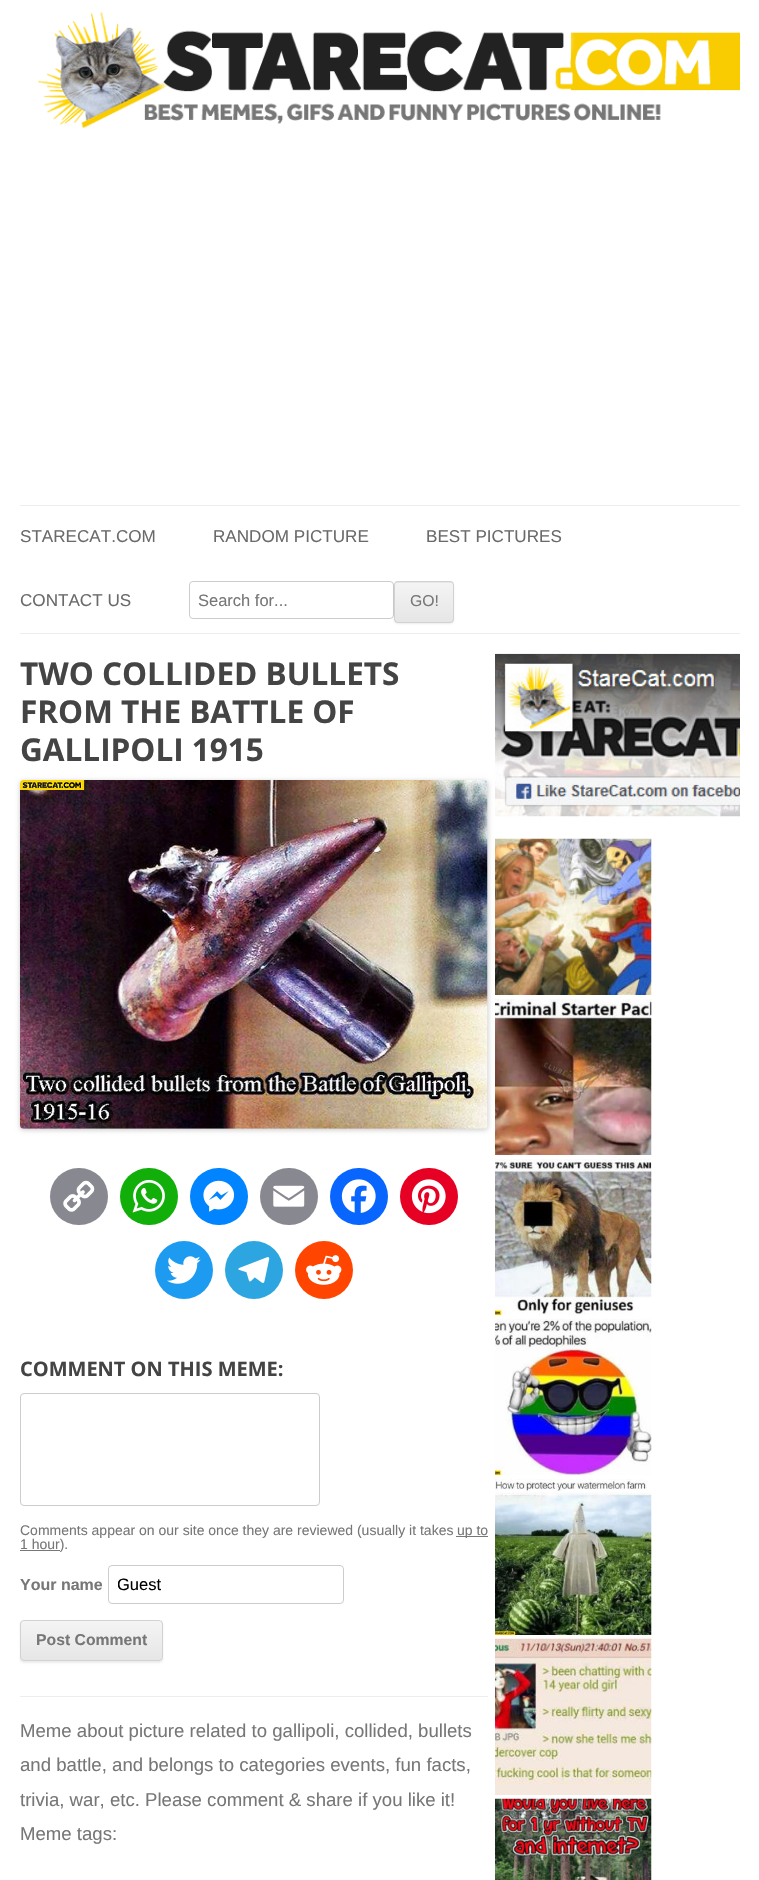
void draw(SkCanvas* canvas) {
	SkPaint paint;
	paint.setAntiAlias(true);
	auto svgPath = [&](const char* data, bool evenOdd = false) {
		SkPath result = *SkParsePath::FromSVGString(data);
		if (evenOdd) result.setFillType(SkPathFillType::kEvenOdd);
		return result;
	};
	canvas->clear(0xffffffff);
	canvas->drawImageRect(SkImages::DeferredFromEncodedData(SkData::MakeFromFileName("img1.png")), SkRect::MakeXYWH(38, 12, 702, 116), SkSamplingOptions());
	paint.setColor(0xffededed);
	canvas->drawRect(SkRect::MakeXYWH(20, 505, 720, 1), paint);
	canvas->drawRect(SkRect::MakeXYWH(20, 633, 720, 1), paint);
	SkFont f1(fontMgr->matchFamilyStyle("Liberation Sans", SkFontStyle::Normal()), 17.1);
	f1.setSubpixel(true);
	paint.setColor(0xff6a6a6a);
	canvas->drawString("STARECAT.COM", 20, 542, f1, paint);
	canvas->drawString("RANDOM PICTURE", 213, 542, f1, paint);
	canvas->drawString("BEST PICTURES", 426, 542, f1, paint);
	canvas->drawString("CONTACT US", 20, 606, f1, paint);
	paint.setStroke(true);
	paint.setStrokeWidth(1);
	paint.setColor(0xffcccccc);
	canvas->drawRoundRect(SkRect::MakeXYWH(189.5, 581.5, 204, 37), 3.5, 3.5, paint);
	SkFont f2(fontMgr->matchFamilyStyle("Liberation Sans", SkFontStyle::Normal()), 16.5);
	f2.setSubpixel(true);
	paint.setStroke(false);
	paint.setColor(0xff777777);
	canvas->drawString("Search for...", 198, 606, f2, paint);
	paint.setColor(0x1a404040);
	paint.setMaskFilter(SkMaskFilter::MakeBlur(kNormal_SkBlurStyle, 1));
	canvas->drawRoundRect(SkRect::MakeXYWH(394, 583, 60, 41), 4, 4, paint);
	paint.setMaskFilter(nullptr);
	paint.setColor(0xffe6e6e6);
	canvas->drawRoundRect(SkRect::MakeXYWH(394, 581, 60, 42), 4, 4, paint);
	canvas->save();
	canvas->clipPath(svgPath("M398 581H450C452 581 454 583 454 585V619C454 621 452 623 450 623H398C396 623 394 621 394 619V585C394 583 396 581 398 581Z"), true);
	{
		const SkColor colors[] = {0xfff4f4f4, 0xffe6e6e6};
		const float stops[] = {0, 1};
		const SkPoint ends[] = {{424, 583}, {424, 621}};
		paint.setShader(SkGradientShader::MakeLinear(ends, colors, stops, 2, SkTileMode::kClamp));
		paint.setAlpha(255);
	}
	canvas->drawRect(SkRect::MakeXYWH(394, 583, 60, 38), paint);
	canvas->restore();
	paint.setStroke(true);
	paint.setShader(nullptr);
	paint.setColor(0xffd2d2d2);
	canvas->drawRoundRect(SkRect::MakeXYWH(394.5, 581.5, 59, 41), 3.5, 3.5, paint);
	SkFont f3(fontMgr->matchFamilyStyle("Liberation Sans", SkFontStyle::Normal()), 15.75);
	f3.setSubpixel(true);
	paint.setStroke(false);
	paint.setColor(0xff777777);
	canvas->drawString("GO!", 410, 606, f3, paint);
	SkFont f4(fontMgr->matchFamilyStyle("Open Sans", SkFontStyle::Bold()), 31.5);
	f4.setSubpixel(true);
	paint.setColor(0xff444444);
	canvas->drawString("TWO COLLIDED BULLETS", 20, 685, f4, paint);
	canvas->drawString("FROM THE BATTLE OF", 20, 723, f4, paint);
	canvas->drawString("GALLIPOLI 1915", 20, 761, f4, paint);
	canvas->drawImageRect(SkImages::DeferredFromEncodedData(SkData::MakeFromFileName("img12.png")), SkRect::MakeXYWH(495, 653, 245, 164), SkSamplingOptions());
	paint.setColor(0x33000000);
	paint.setMaskFilter(SkMaskFilter::MakeBlur(kNormal_SkBlurStyle, 2.5));
	canvas->drawRoundRect(SkRect::MakeXYWH(20, 781, 468, 349), 4, 4, paint);
	paint.setMaskFilter(nullptr);
	canvas->drawImageRect(SkImages::DeferredFromEncodedData(SkData::MakeFromFileName("img2.png")), SkRect::MakeXYWH(20, 780, 468, 349), SkSamplingOptions());
	paint.setColor(0xff888990);
	canvas->drawRoundRect(SkRect::MakeXYWH(50, 1168, 58, 57), 28.5, 28.5, paint);
	canvas->drawImageRect(SkImages::DeferredFromEncodedData(SkData::MakeFromFileName("img3.png")), SkRect::MakeXYWH(63, 1180, 32, 32), SkSamplingOptions());
	paint.setColor(0xff12af0a);
	canvas->drawRoundRect(SkRect::MakeXYWH(120, 1168, 58, 57), 28.5, 28.5, paint);
	canvas->drawImageRect(SkImages::DeferredFromEncodedData(SkData::MakeFromFileName("img4.png")), SkRect::MakeXYWH(132, 1179, 33, 34), SkSamplingOptions());
	paint.setColor(0xff0084ff);
	canvas->drawRoundRect(SkRect::MakeXYWH(190, 1168, 58, 57), 28.5, 28.5, paint);
	canvas->drawImageRect(SkImages::DeferredFromEncodedData(SkData::MakeFromFileName("img5.png")), SkRect::MakeXYWH(203, 1180, 32, 32), SkSamplingOptions());
	paint.setColor(0xff888990);
	canvas->drawRoundRect(SkRect::MakeXYWH(260, 1168, 58, 57), 28.5, 28.5, paint);
	canvas->drawImageRect(SkImages::DeferredFromEncodedData(SkData::MakeFromFileName("img6.png")), SkRect::MakeXYWH(273, 1185, 32, 22), SkSamplingOptions());
	paint.setColor(0xff0866ff);
	canvas->drawRoundRect(SkRect::MakeXYWH(330, 1168, 58, 57), 28.5, 28.5, paint);
	canvas->drawImageRect(SkImages::DeferredFromEncodedData(SkData::MakeFromFileName("img7.png")), SkRect::MakeXYWH(341, 1179, 35, 34), SkSamplingOptions());
	paint.setColor(0xffe60023);
	canvas->drawRoundRect(SkRect::MakeXYWH(400, 1168, 58, 57), 28.5, 28.5, paint);
	canvas->drawImageRect(SkImages::DeferredFromEncodedData(SkData::MakeFromFileName("img8.png")), SkRect::MakeXYWH(411, 1179, 35, 35), SkSamplingOptions());
	paint.setColor(0xff1d9bf0);
	canvas->drawCircle(184, 1270, 29, paint);
	canvas->drawImageRect(SkImages::DeferredFromEncodedData(SkData::MakeFromFileName("img9.png")), SkRect::MakeXYWH(167, 1256, 34, 28), SkSamplingOptions());
	paint.setColor(0xff2ca5e0);
	canvas->drawCircle(254, 1270, 29, paint);
	canvas->drawImageRect(SkImages::DeferredFromEncodedData(SkData::MakeFromFileName("img10.png")), SkRect::MakeXYWH(238, 1257, 32, 26), SkSamplingOptions());
	paint.setColor(0xffff4500);
	canvas->drawCircle(324, 1270, 29, paint);
	canvas->drawImageRect(SkImages::DeferredFromEncodedData(SkData::MakeFromFileName("img11.png")), SkRect::MakeXYWH(306, 1255, 36, 30), SkSamplingOptions());
	SkFont f5(fontMgr->matchFamilyStyle("Open Sans", SkFontStyle::Bold()), 20);
	f5.setSubpixel(true);
	paint.setColor(0xff444444);
	canvas->drawString("COMMENT ON THIS MEME:", 20, 1376, f5, paint);
	paint.setStroke(true);
	paint.setColor(0xffcccccc);
	canvas->drawRoundRect(SkRect::MakeXYWH(20.5, 1393.5, 299, 112), 3.5, 3.5, paint);
	SkFont f6(fontMgr->matchFamilyStyle("Liberation Sans", SkFontStyle::Normal()), 14);
	f6.setSubpixel(true);
	paint.setStroke(false);
	paint.setColor(0xff777777);
	canvas->drawString("Comments appear on our site once they are reviewed (usually it takes", 20, 1535, f6, paint);
	canvas->drawRect(SkRect::MakeXYWH(456, 1536, 32, 1), paint);
	canvas->drawString("up to", 457, 1535, f6, paint);
	canvas->drawRect(SkRect::MakeXYWH(20, 1550, 40, 1), paint);
	canvas->drawString("1 hour).", 20, 1549, f6, paint);
	SkFont f7(fontMgr->matchFamilyStyle("Liberation Sans", SkFontStyle::Bold()), 16);
	f7.setSubpixel(true);
	canvas->drawString("Your name", 20, 1590, f7, paint);
	paint.setStroke(true);
	paint.setColor(0xffcccccc);
	canvas->drawRoundRect(SkRect::MakeXYWH(108.5, 1565.5, 235, 38), 3.5, 3.5, paint);
	canvas->save();
	canvas->clipRect(SkRect::MakeXYWH(118, 1575, 216, 19));
	paint.setStroke(false);
	paint.setColor(0xff000000);
	canvas->drawString("Guest", 117, 1590, f2, paint);
	canvas->restore();
	paint.setColor(0x1a404040);
	paint.setMaskFilter(SkMaskFilter::MakeBlur(kNormal_SkBlurStyle, 1));
	canvas->drawRoundRect(SkRect::MakeXYWH(20, 1621, 143, 42), 4, 4, paint);
	paint.setMaskFilter(nullptr);
	canvas->save();
	canvas->clipPath(svgPath("M24 1620H159C161 1620 163 1622 163 1624V1657C163 1659 161 1661 159 1661H24C22 1661 20 1659 20 1657V1624C20 1622 22 1620 24 1620Z"), true);
	{
		const SkColor colors[] = {0xfff4f4f4, 0xffe6e6e6};
		const float stops[] = {0, 1};
		const SkPoint ends[] = {{91, 1621}, {91, 1660}};
		paint.setShader(SkGradientShader::MakeLinear(ends, colors, stops, 2, SkTileMode::kClamp));
		paint.setAlpha(255);
	}
	canvas->drawRect(SkRect::MakeXYWH(20, 1621, 143, 39), paint);
	canvas->restore();
	paint.setStroke(true);
	paint.setShader(nullptr);
	paint.setColor(0xffd2d2d2);
	canvas->drawRoundRect(SkRect::MakeXYWH(20.5, 1620.5, 142, 40), 3.5, 3.5, paint);
	SkFont f8(fontMgr->matchFamilyStyle("Liberation Sans", SkFontStyle::Bold()), 15.75);
	f8.setSubpixel(true);
	paint.setStroke(false);
	paint.setColor(0xff777777);
	canvas->drawString("Post Comment", 36, 1645, f8, paint);
	paint.setColor(0xffededed);
	canvas->drawRect(SkRect::MakeXYWH(20, 1696, 468, 1), paint);
	SkFont f9(fontMgr->matchFamilyStyle("Liberation Sans", SkFontStyle::Normal()), 18.6);
	f9.setSubpixel(true);
	paint.setColor(0xff777777);
	canvas->drawString("Meme about picture related to gallipoli, collided, bullets", 20, 1737, f9, paint);
	canvas->drawString("and battle, and belongs to categories events, fun facts,", 20, 1771, f9, paint);
	canvas->drawString("trivia, war, etc. Please comment & share if you like it!", 20, 1806, f9, paint);
	canvas->drawString("Meme tags:", 20, 1840, f9, paint);
	canvas->drawImageRect(SkImages::DeferredFromEncodedData(SkData::MakeFromFileName("img13.png")), SkRect::MakeXYWH(495, 838, 157, 157), SkSamplingOptions());
	canvas->drawImageRect(SkImages::DeferredFromEncodedData(SkData::MakeFromFileName("img14.png")), SkRect::MakeXYWH(495, 999, 157, 156), SkSamplingOptions());
	canvas->drawImageRect(SkImages::DeferredFromEncodedData(SkData::MakeFromFileName("img15.png")), SkRect::MakeXYWH(495, 1159, 157, 156), SkSamplingOptions());
	canvas->drawImageRect(SkImages::DeferredFromEncodedData(SkData::MakeFromFileName("img16.png")), SkRect::MakeXYWH(495, 1318, 157, 157), SkSamplingOptions());
	canvas->drawImageRect(SkImages::DeferredFromEncodedData(SkData::MakeFromFileName("img17.png")), SkRect::MakeXYWH(495, 1479, 157, 156), SkSamplingOptions());
	canvas->drawImageRect(SkImages::DeferredFromEncodedData(SkData::MakeFromFileName("img18.png")), SkRect::MakeXYWH(495, 1638, 157, 157), SkSamplingOptions());
	canvas->drawImageRect(SkImages::DeferredFromEncodedData(SkData::MakeFromFileName("img19.png")), SkRect::MakeXYWH(495, 1798, 157, 82), SkSamplingOptions());
}
